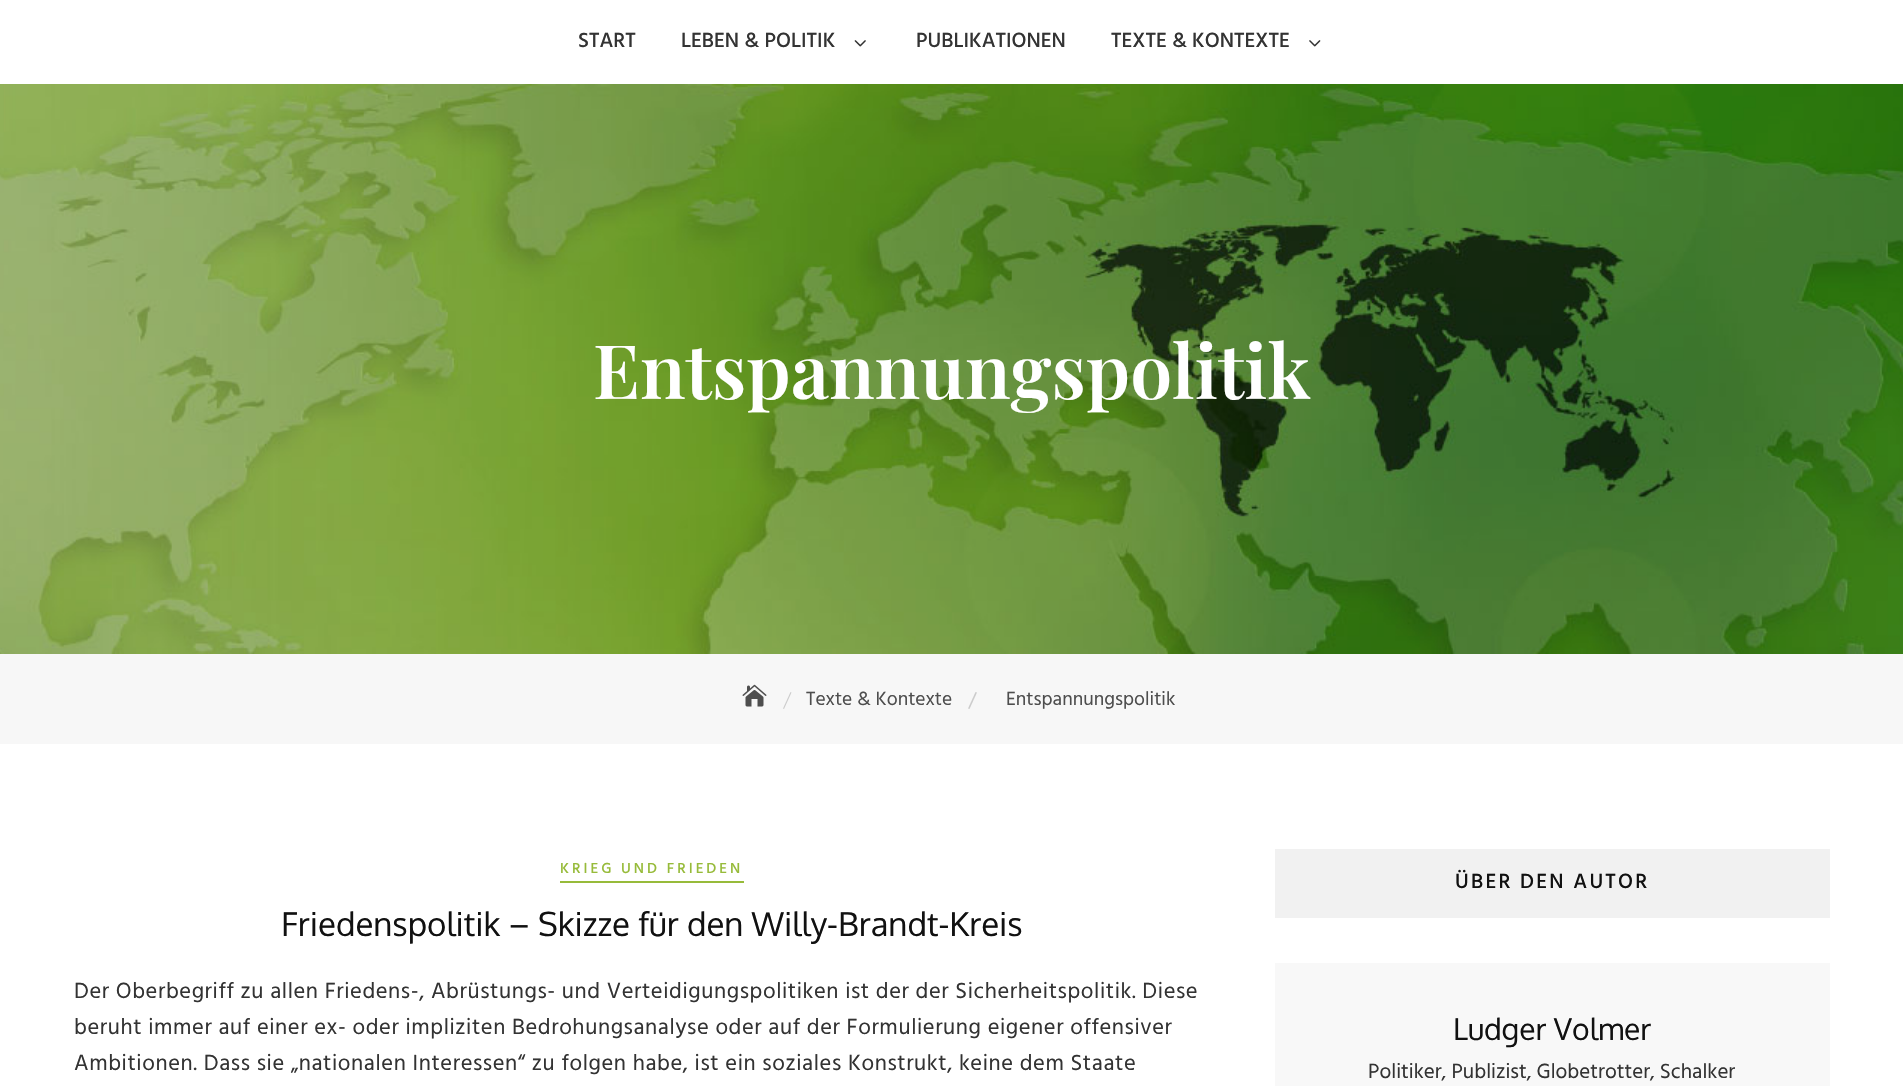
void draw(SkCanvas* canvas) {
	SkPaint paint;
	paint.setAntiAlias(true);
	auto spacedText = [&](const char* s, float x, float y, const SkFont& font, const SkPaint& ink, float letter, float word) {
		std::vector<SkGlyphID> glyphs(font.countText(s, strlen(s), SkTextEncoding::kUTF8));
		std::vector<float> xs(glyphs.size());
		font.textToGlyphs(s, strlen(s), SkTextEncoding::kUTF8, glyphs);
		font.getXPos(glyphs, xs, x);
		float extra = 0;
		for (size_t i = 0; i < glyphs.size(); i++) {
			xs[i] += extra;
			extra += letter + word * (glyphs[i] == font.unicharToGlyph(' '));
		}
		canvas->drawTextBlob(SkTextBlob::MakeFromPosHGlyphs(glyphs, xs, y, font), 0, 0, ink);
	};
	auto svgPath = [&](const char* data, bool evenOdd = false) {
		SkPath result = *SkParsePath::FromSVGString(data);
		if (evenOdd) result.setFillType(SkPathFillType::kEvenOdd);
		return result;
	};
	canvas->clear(0xffffffff);
	SkFont f1(fontMgr->matchFamilyStyle("Hind", SkFontStyle(500, SkFontStyle::kNormal_Width, SkFontStyle::kUpright_Slant)), 21);
	f1.setSubpixel(true);
	paint.setColor(0xff333333);
	canvas->drawString("START", 578, 47, f1, paint);
	canvas->drawString("LEBEN & POLITIK", 681, 47, f1, paint);
	canvas->drawImageRect(SkImages::DeferredFromEncodedData(SkData::MakeFromFileName("img1.png")), SkRect::MakeXYWH(854, 40, 12, 7), SkSamplingOptions());
	canvas->drawString("PUBLIKATIONEN", 916, 47, f1, paint);
	canvas->drawString("TEXTE & KONTEXTE", 1111, 47, f1, paint);
	canvas->drawImageRect(SkImages::DeferredFromEncodedData(SkData::MakeFromFileName("img2.png")), SkRect::MakeXYWH(1309, 40, 12, 7), SkSamplingOptions());
	canvas->drawImageRect(SkImages::DeferredFromEncodedData(SkData::MakeFromFileName("img3.png")), SkRect::MakeXYWH(0, 84, 1903, 570), SkSamplingOptions());
	SkFont f2(fontMgr->matchFamilyStyle("Playfair Display", SkFontStyle(600, SkFontStyle::kNormal_Width, SkFontStyle::kUpright_Slant)), 75);
	f2.setSubpixel(true);
	paint.setColor(0xffffffff);
	canvas->drawString("Entspannungspolitik", 593, 399, f2, paint);
	paint.setColor(0xfff7f7f7);
	canvas->drawRect(SkRect::MakeXYWH(0, 654, 1903, 90), paint);
	canvas->drawImageRect(SkImages::DeferredFromEncodedData(SkData::MakeFromFileName("img4.png")), SkRect::MakeXYWH(742, 684, 25, 23), SkSamplingOptions());
	paint.setColor(0xffcccccc);
	canvas->drawPath(svgPath("M790.5 692L791.5 692.5L784 709L783 708.5Z"), paint);
	SkFont f3(fontMgr->matchFamilyStyle("Hind", SkFontStyle::Normal()), 19.5);
	f3.setSubpixel(true);
	paint.setColor(0xff4e4e4e);
	canvas->drawString("Texte & Kontexte", 806, 705, f3, paint);
	paint.setColor(0xffcccccc);
	canvas->drawPath(svgPath("M975.5 692L977 692.5L969.5 709L968 708.5Z"), paint);
	paint.setColor(0xff4e4e4e);
	canvas->drawString("Entspannungspolitik", 1006, 705, f3, paint);
	paint.setColor(0xff97bb3a);
	canvas->drawRect(SkRect::MakeXYWH(560, 881, 184, 2), paint);
	SkFont f4(fontMgr->matchFamilyStyle("Hind", SkFontStyle(500, SkFontStyle::kNormal_Width, SkFontStyle::kUpright_Slant)), 15);
	f4.setSubpixel(true);
	spacedText("KRIEG UND FRIEDEN", 560, 873, f4, paint, 3, 0);
	SkFont f5(fontMgr->matchFamilyStyle("Oxygen", SkFontStyle::Normal()), 33);
	f5.setSubpixel(true);
	paint.setColor(0xff111111);
	canvas->drawString("Friedenspolitik – Skizze für den Willy-Brandt-Kreis", 281, 936, f5, paint);
	SkFont f6(fontMgr->matchFamilyStyle("Hind", SkFontStyle::Normal()), 22.5);
	f6.setSubpixel(true);
	paint.setColor(0xff333333);
	spacedText("Der Oberbegriff zu allen Friedens-, Abrüstungs- und Verteidigungspolitiken ist der der Sicherheitspolitik. Diese", 74, 998, f6, paint, 0.6, 0);
	spacedText("beruht immer auf einer ex- oder impliziten Bedrohungsanalyse oder auf der Formulierung eigener offensiver", 74, 1034, f6, paint, 0.6, 0);
	spacedText("Ambitionen. Dass sie „nationalen Interessen“ zu folgen habe, ist ein soziales Konstrukt, keine dem Staate", 74, 1070, f6, paint, 0.6, 0);
	paint.setColor(0xfff1f1f1);
	canvas->drawRect(SkRect::MakeXYWH(1275, 849, 555, 69), paint);
	paint.setColor(0xff111111);
	spacedText("ÜBER DEN AUTOR", 1455, 888, f1, paint, 2.25, 0);
	paint.setColor(0xfff8f8f8);
	canvas->drawRect(SkRect::MakeXYWH(1275, 963, 555, 123), paint);
	SkFont f7(fontMgr->matchFamilyStyle("Oxygen", SkFontStyle::Normal()), 30);
	f7.setSubpixel(true);
	paint.setColor(0xff111111);
	canvas->drawString("Ludger Volmer", 1453, 1040, f7, paint);
	SkFont f8(fontMgr->matchFamilyStyle("Hind", SkFontStyle::Normal()), 21);
	f8.setSubpixel(true);
	paint.setColor(0xff333333);
	canvas->drawString("Politiker, Publizist, Globetrotter, Schalker", 1368, 1078, f8, paint);
}
